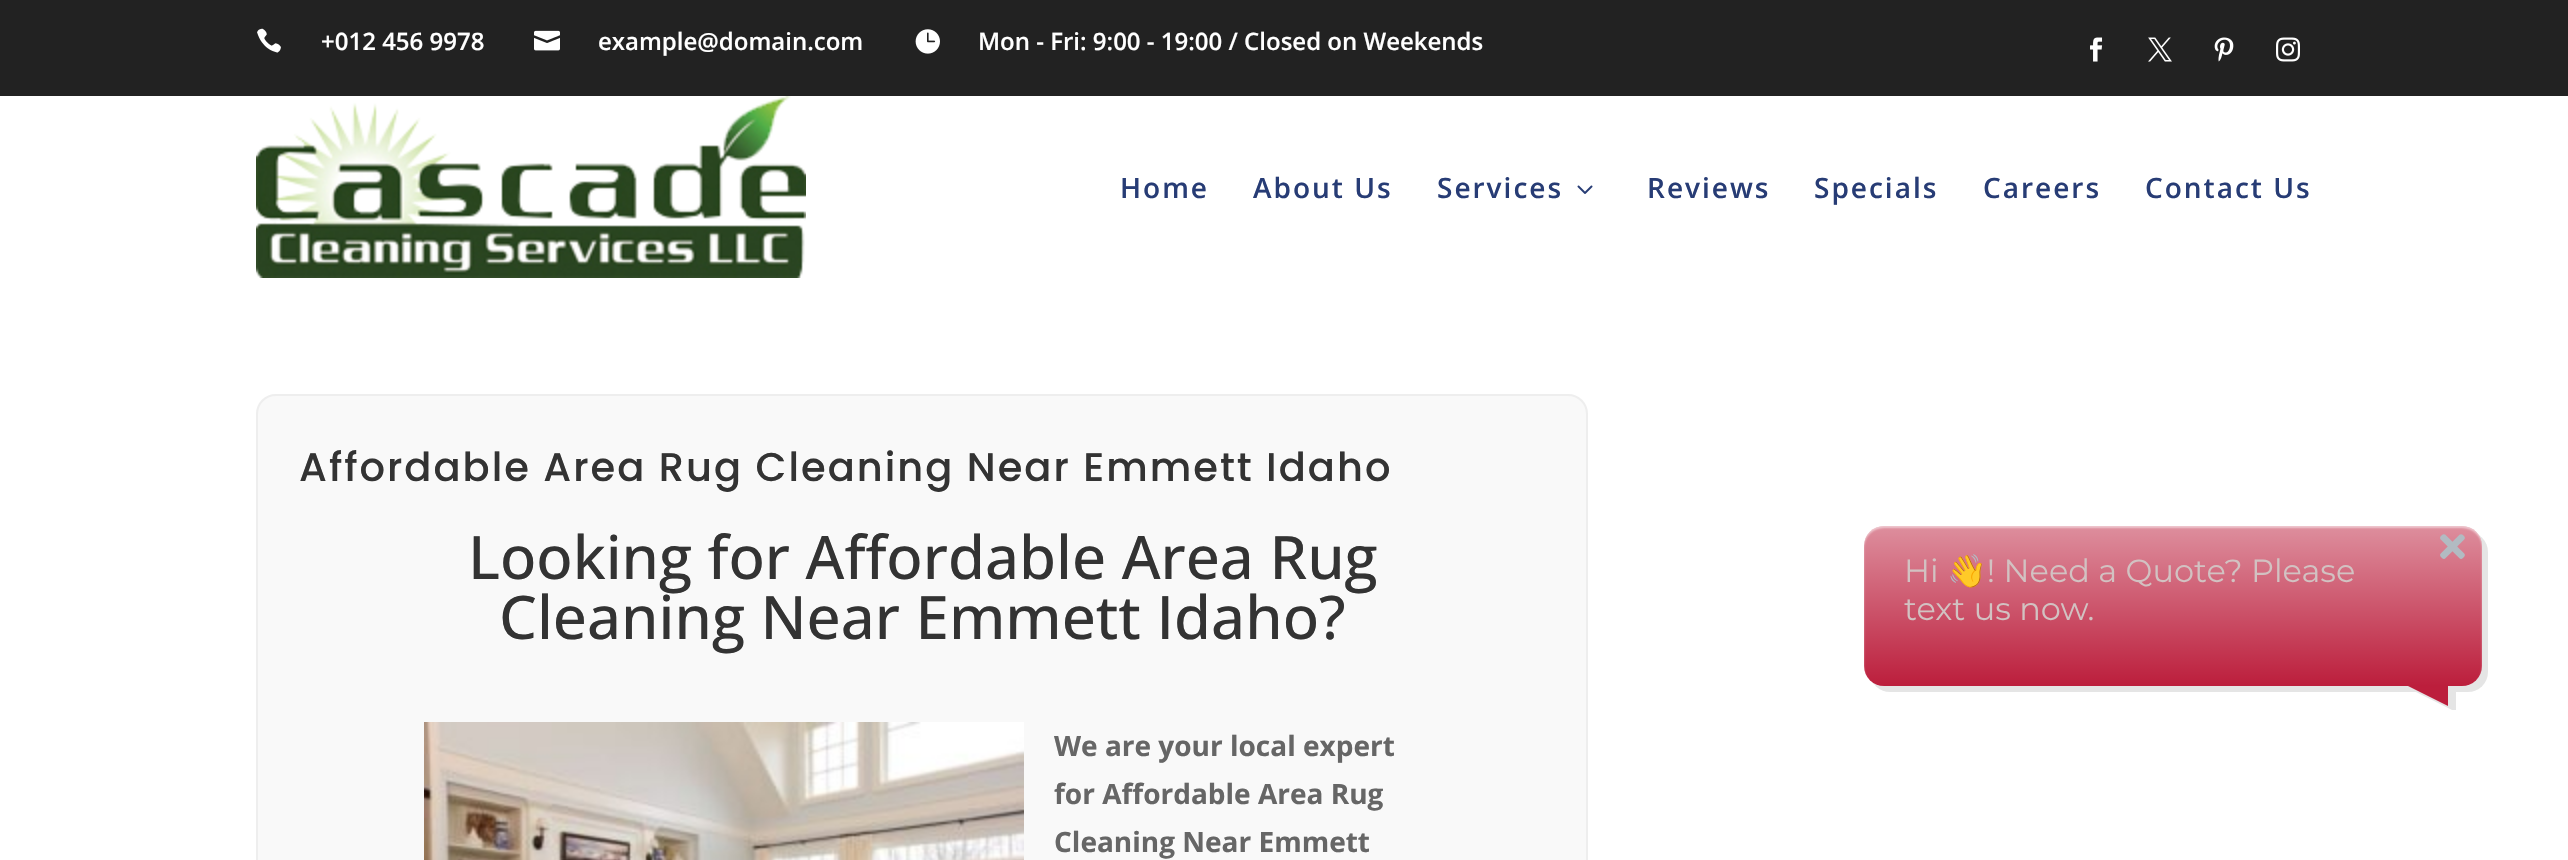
void draw(SkCanvas* canvas) {
	SkPaint paint;
	paint.setAntiAlias(true);
	auto spacedText = [&](const char* s, float x, float y, const SkFont& font, const SkPaint& ink, float letter, float word) {
		std::vector<SkGlyphID> glyphs(font.countText(s, strlen(s), SkTextEncoding::kUTF8));
		std::vector<float> xs(glyphs.size());
		font.textToGlyphs(s, strlen(s), SkTextEncoding::kUTF8, glyphs);
		font.getXPos(glyphs, xs, x);
		float extra = 0;
		for (size_t i = 0; i < glyphs.size(); i++) {
			xs[i] += extra;
			extra += letter + word * (glyphs[i] == font.unicharToGlyph(' '));
		}
		canvas->drawTextBlob(SkTextBlob::MakeFromPosHGlyphs(glyphs, xs, y, font), 0, 0, ink);
	};
	canvas->clear(0xffffffff);
	paint.setColor(0xff222222);
	canvas->drawRect(SkRect::MakeXYWH(0, 0, 2568, 96), paint);
	canvas->drawImageRect(SkImages::DeferredFromEncodedData(SkData::MakeFromFileName("img1.png")), SkRect::MakeXYWH(257, 28, 24, 25), SkSamplingOptions());
	SkFont f1(fontMgr->matchFamilyStyle("Open Sans", SkFontStyle(600, SkFontStyle::kNormal_Width, SkFontStyle::kUpright_Slant)), 24);
	f1.setSubpixel(true);
	paint.setColor(0xffffffff);
	canvas->drawString("+012 456 9978", 321, 50, f1, paint);
	canvas->drawImageRect(SkImages::DeferredFromEncodedData(SkData::MakeFromFileName("img2.png")), SkRect::MakeXYWH(534, 30, 26, 21), SkSamplingOptions());
	canvas->drawString("example@domain.com", 598, 50, f1, paint);
	canvas->drawImageRect(SkImages::DeferredFromEncodedData(SkData::MakeFromFileName("img3.png")), SkRect::MakeXYWH(915, 29, 25, 25), SkSamplingOptions());
	canvas->drawString("Mon - Fri: 9:00 - 19:00 / Closed on Weekends", 978, 50, f1, paint);
	canvas->drawImageRect(SkImages::DeferredFromEncodedData(SkData::MakeFromFileName("img4.png")), SkRect::MakeXYWH(2090, 37, 13, 25), SkSamplingOptions());
	canvas->drawImageRect(SkImages::DeferredFromEncodedData(SkData::MakeFromFileName("img5.png")), SkRect::MakeXYWH(2148, 37, 24, 25), SkSamplingOptions());
	canvas->drawImageRect(SkImages::DeferredFromEncodedData(SkData::MakeFromFileName("img6.png")), SkRect::MakeXYWH(2214, 37, 20, 25), SkSamplingOptions());
	canvas->drawImageRect(SkImages::DeferredFromEncodedData(SkData::MakeFromFileName("img7.png")), SkRect::MakeXYWH(2276, 37, 24, 25), SkSamplingOptions());
	canvas->drawImageRect(SkImages::DeferredFromEncodedData(SkData::MakeFromFileName("img8.png")), SkRect::MakeXYWH(256, 96, 550, 182), SkSamplingOptions());
	SkFont f2(fontMgr->matchFamilyStyle("Open Sans", SkFontStyle(600, SkFontStyle::kNormal_Width, SkFontStyle::kUpright_Slant)), 28);
	f2.setSubpixel(true);
	paint.setColor(0xff273c75);
	spacedText("Home", 1120, 198, f2, paint, 2, 0);
	spacedText("About Us", 1253, 198, f2, paint, 2, 0);
	spacedText("Services", 1437, 198, f2, paint, 2, 0);
	canvas->drawImageRect(SkImages::DeferredFromEncodedData(SkData::MakeFromFileName("img9.png")), SkRect::MakeXYWH(1577, 185, 16, 9), SkSamplingOptions());
	spacedText("Reviews", 1647, 198, f2, paint, 2, 0);
	spacedText("Specials", 1814, 198, f2, paint, 2, 0);
	spacedText("Careers", 1983, 198, f2, paint, 2, 0);
	spacedText("Contact Us", 2145, 198, f2, paint, 2, 0);
	paint.setColor(0xfff9f9f9);
	canvas->drawRoundRect(SkRect::MakeXYWH(257, 395, 1330, 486), 19, 19, paint);
	paint.setStroke(true);
	paint.setStrokeWidth(2);
	paint.setColor(0xffeeeeee);
	canvas->drawRoundRect(SkRect::MakeXYWH(257, 395, 1330, 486), 19, 19, paint);
	SkFont f3(fontMgr->matchFamilyStyle("Poppins", SkFontStyle(500, SkFontStyle::kNormal_Width, SkFontStyle::kUpright_Slant)), 40);
	f3.setSubpixel(true);
	paint.setStroke(false);
	paint.setColor(0xff333333);
	spacedText("Affordable Area Rug Cleaning Near Emmett Idaho", 299, 481, f3, paint, 2, 0);
	SkFont f4(fontMgr->matchFamilyStyle("Open Sans", SkFontStyle(500, SkFontStyle::kNormal_Width, SkFontStyle::kUpright_Slant)), 60);
	f4.setSubpixel(true);
	canvas->drawString("Looking for Affordable Area Rug", 468, 579, f4, paint);
	canvas->drawString("Cleaning Near Emmett Idaho?", 499, 639, f4, paint);
	canvas->drawImageRect(SkImages::DeferredFromEncodedData(SkData::MakeFromFileName("img10.png")), SkRect::MakeXYWH(424, 722, 600, 138), SkSamplingOptions());
	SkFont f5(fontMgr->matchFamilyStyle("Open Sans", SkFontStyle::Bold()), 28);
	f5.setSubpixel(true);
	paint.setColor(0xff666666);
	canvas->drawString("We are your local expert", 1054, 756, f5, paint);
	canvas->drawString("for Affordable Area Rug", 1054, 804, f5, paint);
	canvas->drawString("Cleaning Near Emmett", 1054, 852, f5, paint);
	canvas->drawImageRect(SkImages::DeferredFromEncodedData(SkData::MakeFromFileName("img11.png")), SkRect::MakeXYWH(1864, 526, 624, 184), SkSamplingOptions());
}
